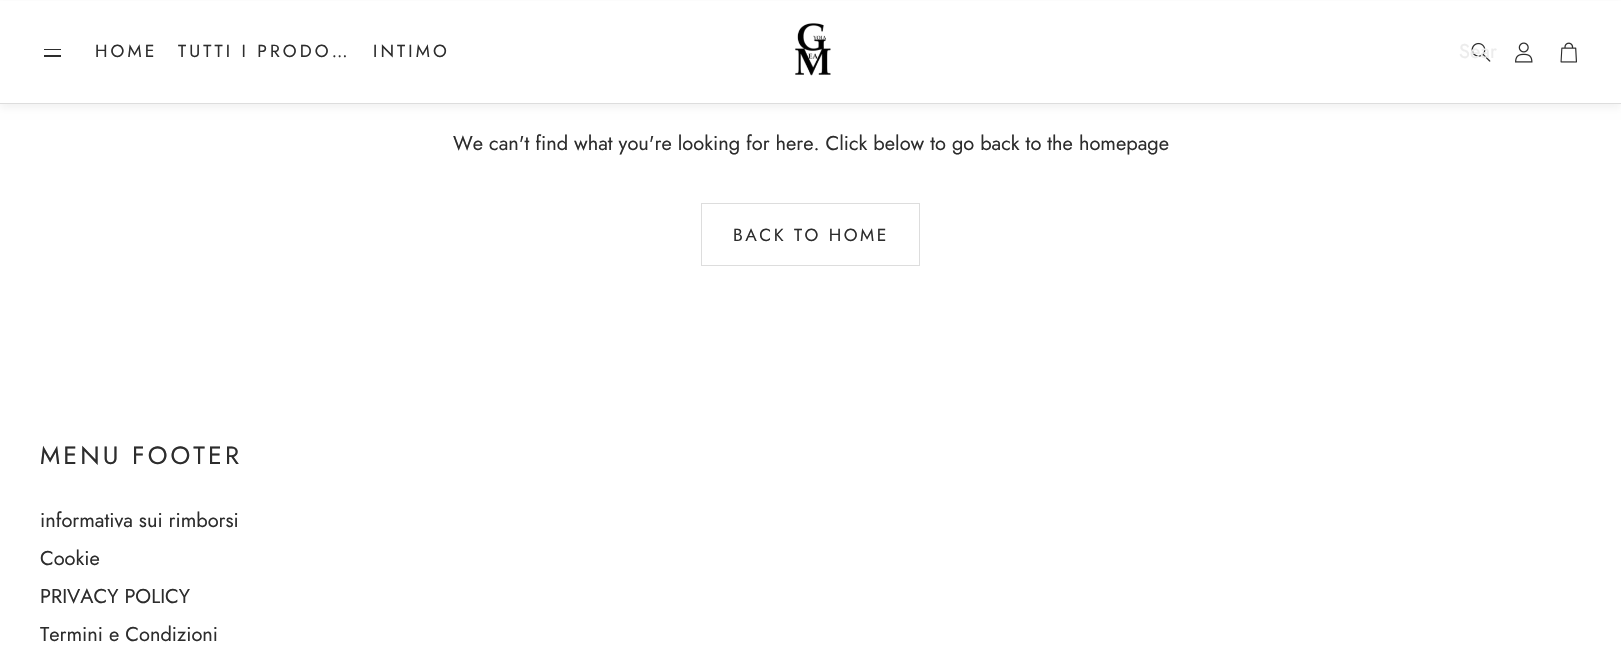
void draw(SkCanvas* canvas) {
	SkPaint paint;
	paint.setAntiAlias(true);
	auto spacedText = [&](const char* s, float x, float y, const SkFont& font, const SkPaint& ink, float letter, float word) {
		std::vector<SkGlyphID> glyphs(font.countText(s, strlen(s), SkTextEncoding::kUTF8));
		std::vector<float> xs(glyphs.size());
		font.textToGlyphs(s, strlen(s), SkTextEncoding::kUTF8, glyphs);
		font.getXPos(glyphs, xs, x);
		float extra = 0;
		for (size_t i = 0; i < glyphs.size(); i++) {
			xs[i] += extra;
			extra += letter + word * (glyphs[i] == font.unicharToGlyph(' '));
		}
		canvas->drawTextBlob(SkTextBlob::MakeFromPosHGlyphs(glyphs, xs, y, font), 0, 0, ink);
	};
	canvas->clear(0xffffffff);
	paint.setColor(0x0d000000);
	paint.setMaskFilter(SkMaskFilter::MakeBlur(kNormal_SkBlurStyle, 4));
	canvas->drawRect(SkRect::MakeXYWH(0, 4, 1621, 104), paint);
	paint.setMaskFilter(nullptr);
	paint.setColor(0xffffffff);
	canvas->drawRect(SkRect::MakeXYWH(0, 1, 1621, 102), paint);
	paint.setColor(0xffdddddd);
	canvas->drawRect(SkRect::MakeXYWH(0, 103, 1621, 1), paint);
	paint.setColor(0xff2d2d2d);
	canvas->drawRect(SkRect::MakeXYWH(44, 49, 17, 1), paint);
	canvas->drawRect(SkRect::MakeXYWH(44, 55, 17, 2), paint);
	SkFont f1(fontMgr->matchFamilyStyle("Jost", SkFontStyle::Normal()), 17.5);
	f1.setSubpixel(true);
	spacedText("HOME", 95, 57, f1, paint, 3.1, 0);
	spacedText("TUTTI I PRODO…", 178, 57, f1, paint, 3.1, 0);
	spacedText("INTIMO", 373, 57, f1, paint, 3.1, 0);
	canvas->drawImageRect(SkImages::DeferredFromEncodedData(SkData::MakeFromFileName("img1.png")), SkRect::MakeXYWH(795, 23, 36, 53), SkSamplingOptions());
	canvas->drawImageRect(SkImages::DeferredFromEncodedData(SkData::MakeFromFileName("img2.png")), SkRect::MakeXYWH(1471, 42, 20, 20), SkSamplingOptions());
	SkFont f2(fontMgr->matchFamilyStyle("Jost", SkFontStyle::Normal()), 20);
	f2.setSubpixel(true);
	paint.setColor(0xffececec);
	canvas->drawString("Sear", 1459, 58, f2, paint);
	canvas->drawImageRect(SkImages::DeferredFromEncodedData(SkData::MakeFromFileName("img3.png")), SkRect::MakeXYWH(1515, 42, 18, 21), SkSamplingOptions());
	canvas->drawImageRect(SkImages::DeferredFromEncodedData(SkData::MakeFromFileName("img4.png")), SkRect::MakeXYWH(1560, 42, 17, 21), SkSamplingOptions());
	paint.setColor(0xff2d2d2d);
	canvas->drawString("We can't find what you're looking for here. Click below to go back to the homepage", 453, 150, f2, paint);
	paint.setStroke(true);
	paint.setStrokeWidth(1);
	paint.setColor(0xffdddddd);
	canvas->drawRect(SkRect::MakeXYWH(701.5, 203.5, 218, 62), paint);
	paint.setStroke(false);
	paint.setColor(0xff2d2d2d);
	spacedText("BACK TO HOME", 733, 241, f1, paint, 2.5, 0);
	SkFont f3(fontMgr->matchFamilyStyle("Jost", SkFontStyle::Normal()), 25);
	f3.setSubpixel(true);
	spacedText("MENU FOOTER", 40, 464, f3, paint, 3.1, 0);
	canvas->drawString("informativa sui rimborsi", 40, 527, f2, paint);
	canvas->drawString("Cookie", 40, 565, f2, paint);
	canvas->drawString("PRIVACY POLICY", 40, 603, f2, paint);
	canvas->drawString("Termini e Condizioni", 40, 641, f2, paint);
}
